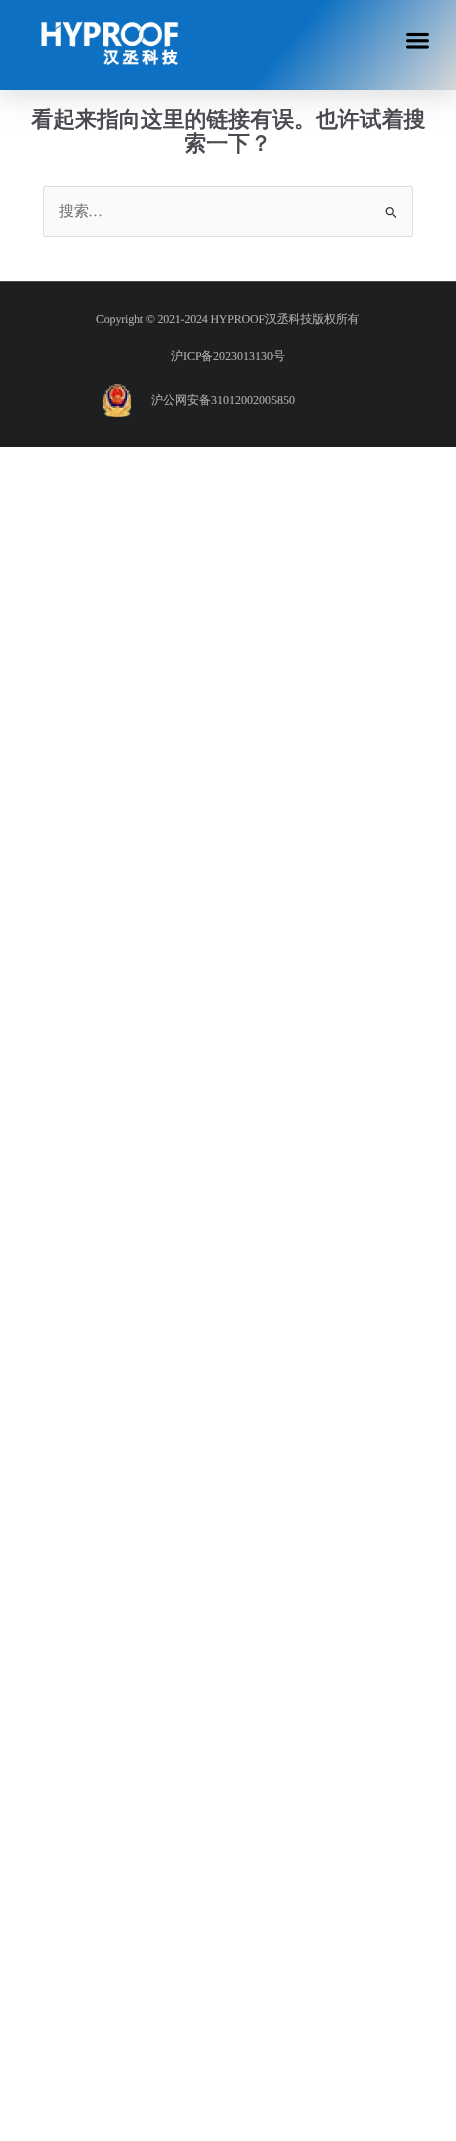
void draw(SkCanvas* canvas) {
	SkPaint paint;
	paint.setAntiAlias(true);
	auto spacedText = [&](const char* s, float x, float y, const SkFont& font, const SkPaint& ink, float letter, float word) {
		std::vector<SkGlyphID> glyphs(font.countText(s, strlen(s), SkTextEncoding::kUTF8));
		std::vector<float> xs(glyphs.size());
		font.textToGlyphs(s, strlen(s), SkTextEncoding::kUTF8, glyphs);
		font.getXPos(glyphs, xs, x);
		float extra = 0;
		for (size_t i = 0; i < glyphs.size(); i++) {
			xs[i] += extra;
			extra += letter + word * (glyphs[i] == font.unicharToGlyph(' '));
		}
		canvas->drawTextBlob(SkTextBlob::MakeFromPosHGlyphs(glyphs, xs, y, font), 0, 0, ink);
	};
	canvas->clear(0xffffffff);
	paint.setColor(0x1a000000);
	paint.setMaskFilter(SkMaskFilter::MakeBlur(kNormal_SkBlurStyle, 10));
	canvas->drawRect(SkRect::MakeXYWH(0, 10, 456, 90), paint);
	paint.setMaskFilter(nullptr);
	{
		const SkColor colors[] = {0xff0d70c2, 0xffd8d8d8};
		const float stops[] = {0.61, 1};
		const SkPoint ends[] = {{72, -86}, {384, 176}};
		paint.setShader(SkGradientShader::MakeLinear(ends, colors, stops, 2, SkTileMode::kClamp));
		paint.setAlpha(255);
	}
	canvas->drawRect(SkRect::MakeXYWH(0, 0, 456, 90), paint);
	canvas->drawImageRect(SkImages::DeferredFromEncodedData(SkData::MakeFromFileName("img1.png")), SkRect::MakeXYWH(41, 21, 138, 45), SkSamplingOptions());
	canvas->drawImageRect(SkImages::DeferredFromEncodedData(SkData::MakeFromFileName("img2.png")), SkRect::MakeXYWH(406, 32, 23, 17), SkSamplingOptions());
	SkFont f1(fontMgr->matchFamilyStyle("WenQuanYi Zen Hei", SkFontStyle::Bold()), 21.9);
	f1.setSubpixel(true);
	paint.setShader(nullptr);
	paint.setColor(0xff494b51);
	canvas->drawString("看起来指向这里的链接有误。也许试着搜", 31, 127, f1, paint);
	canvas->drawString("索一下？", 184, 151, f1, paint);
	paint.setColor(0xfffafafa);
	canvas->drawRoundRect(SkRect::MakeXYWH(43.5, 186.5, 369, 50), 1.5, 1.5, paint);
	paint.setStroke(true);
	paint.setStrokeWidth(1);
	paint.setColor(0xffdddddd);
	canvas->drawRoundRect(SkRect::MakeXYWH(43.5, 186.5, 369, 50), 1.5, 1.5, paint);
	SkFont f2(fontMgr->matchFamilyStyle("WenQuanYi Zen Hei", SkFontStyle(500, SkFontStyle::kNormal_Width, SkFontStyle::kUpright_Slant)), 15);
	f2.setSubpixel(true);
	paint.setStroke(false);
	paint.setColor(0xff757575);
	canvas->drawString("搜索", 59, 216, f2, paint);
	SkFont f3(fontMgr->matchFamilyStyle("Liberation Serif", SkFontStyle::Normal()), 15);
	f3.setSubpixel(true);
	canvas->drawString("…", 88, 216, f3, paint);
	canvas->drawImageRect(SkImages::DeferredFromEncodedData(SkData::MakeFromFileName("img3.png")), SkRect::MakeXYWH(385, 207, 11, 12), SkSamplingOptions());
	paint.setColor(0xff1d1f21);
	canvas->drawRect(SkRect::MakeXYWH(0, 282, 456, 165), paint);
	paint.setColor(0xff484a4b);
	canvas->drawRect(SkRect::MakeXYWH(0, 281, 456, 1), paint);
	SkFont f4(fontMgr->matchFamilyStyle("Liberation Serif", SkFontStyle::Normal()), 12);
	f4.setSubpixel(true);
	paint.setColor(0xffadadad);
	spacedText("Copyright © 2021-2024 HYPROOF", 96, 323, f4, paint, -0.2, 0);
	SkFont f5(fontMgr->matchFamilyStyle("WenQuanYi Zen Hei", SkFontStyle(500, SkFontStyle::kNormal_Width, SkFontStyle::kUpright_Slant)), 12);
	f5.setSubpixel(true);
	spacedText("汉丞科技版权所有", 265, 323, f5, paint, -0.2, 0);
	canvas->drawString("沪", 171, 360, f5, paint);
	canvas->drawString("ICP", 183, 360, f4, paint);
	canvas->drawString("备", 201, 360, f5, paint);
	canvas->drawString("2023013130", 213, 360, f4, paint);
	canvas->drawString("号", 273, 360, f5, paint);
	canvas->drawImageRect(SkImages::DeferredFromEncodedData(SkData::MakeFromFileName("img4.png")), SkRect::MakeXYWH(102, 384, 29, 33), SkSamplingOptions());
	canvas->drawString("沪公网安备", 151, 404, f5, paint);
	canvas->drawString("31012002005850", 211, 404, f4, paint);
}
